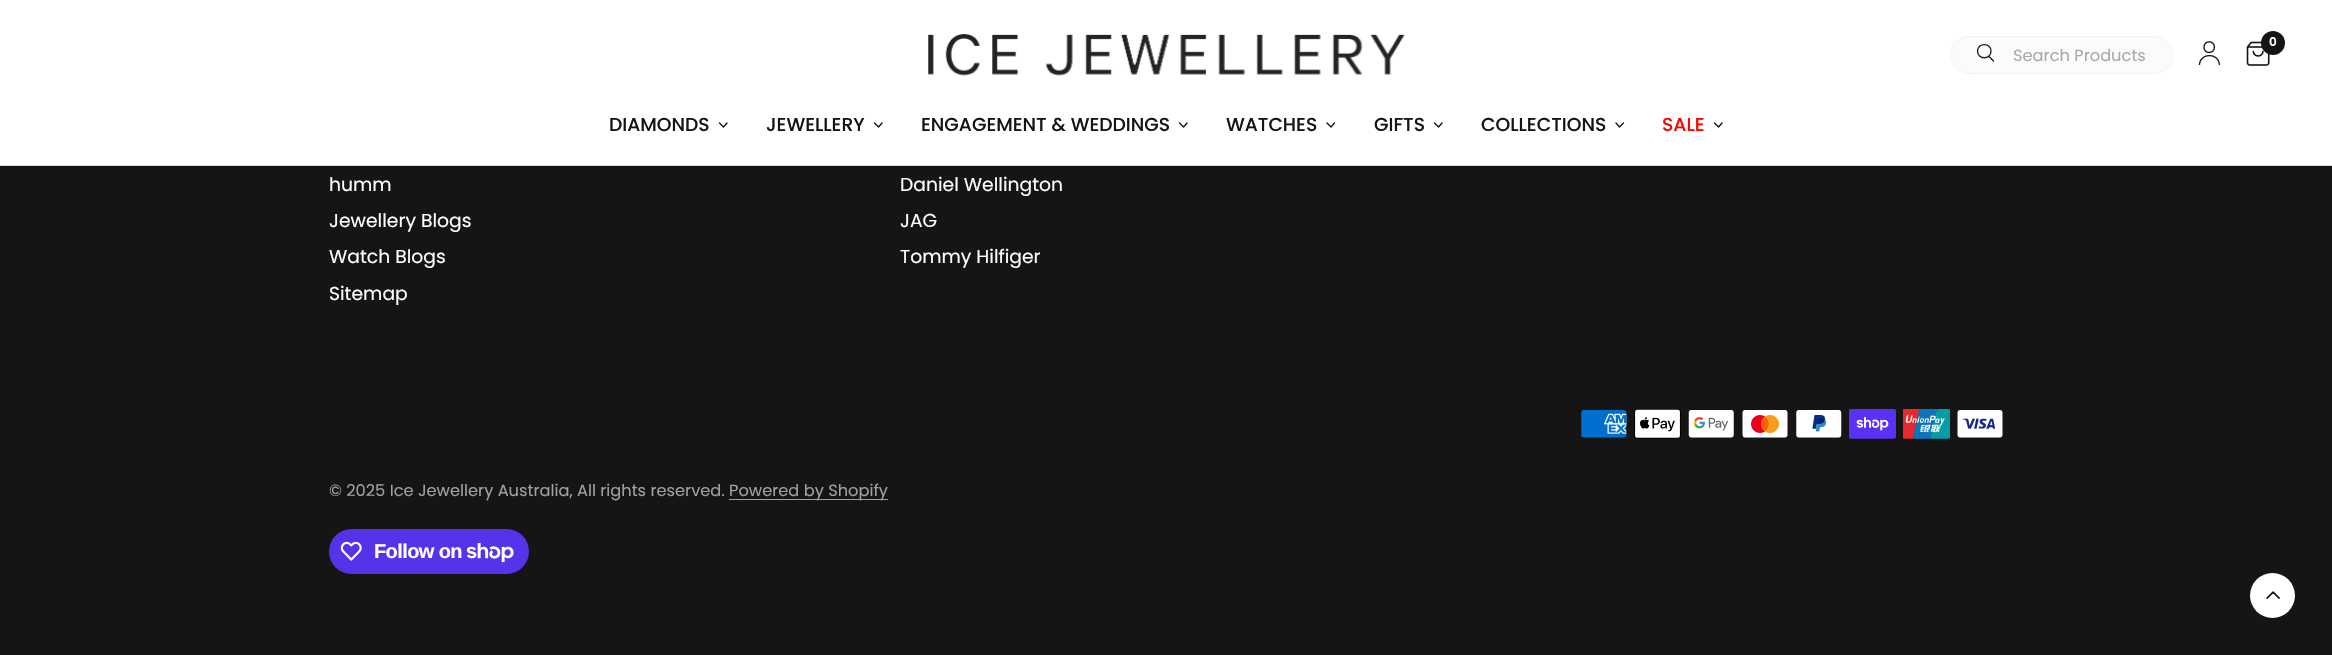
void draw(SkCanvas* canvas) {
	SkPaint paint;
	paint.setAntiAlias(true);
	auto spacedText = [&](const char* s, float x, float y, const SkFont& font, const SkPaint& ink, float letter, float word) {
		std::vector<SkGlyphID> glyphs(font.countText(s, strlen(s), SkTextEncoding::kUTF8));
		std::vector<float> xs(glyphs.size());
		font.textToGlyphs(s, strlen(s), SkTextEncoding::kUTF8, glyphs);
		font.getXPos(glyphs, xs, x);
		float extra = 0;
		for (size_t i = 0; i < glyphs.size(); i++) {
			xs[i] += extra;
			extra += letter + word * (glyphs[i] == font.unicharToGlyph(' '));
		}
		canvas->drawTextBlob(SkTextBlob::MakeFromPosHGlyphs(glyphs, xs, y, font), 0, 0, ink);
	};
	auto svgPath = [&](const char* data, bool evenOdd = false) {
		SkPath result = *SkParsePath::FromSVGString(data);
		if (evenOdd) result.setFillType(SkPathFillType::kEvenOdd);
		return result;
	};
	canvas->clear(0xff151515);
	paint.setColor(0xffffffff);
	canvas->drawRect(SkRect::MakeXYWH(0, 0, 2332, 165), paint);
	paint.setColor(0xffe2e2e2);
	canvas->drawRect(SkRect::MakeXYWH(0, 165, 2332, 1), paint);
	canvas->save();
	canvas->clipRect(SkRect::MakeXYWH(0, 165, 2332, 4));
	paint.setColor(0x0f000000);
	paint.setMaskFilter(SkMaskFilter::MakeBlur(kNormal_SkBlurStyle, 3));
	canvas->drawRect(SkRect::MakeXYWH(0, 3, 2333, 165), paint);
	paint.setMaskFilter(nullptr);
	canvas->restore();
	canvas->drawImageRect(SkImages::DeferredFromEncodedData(SkData::MakeFromFileName("img1.png")), SkRect::MakeXYWH(928, 34, 477, 42), SkSamplingOptions());
	paint.setColor(0xfffbfbfb);
	canvas->drawRoundRect(SkRect::MakeXYWH(1950.5, 36.5, 222, 37), 18.5, 18.5, paint);
	paint.setStroke(true);
	paint.setStrokeWidth(1);
	paint.setColor(0xfff3f3f4);
	canvas->drawRoundRect(SkRect::MakeXYWH(1950.5, 36.5, 222, 37), 18.5, 18.5, paint);
	paint.setStrokeWidth(1.3);
	paint.setStrokeCap(SkPaint::kRound_Cap);
	paint.setStrokeJoin(SkPaint::kRound_Join);
	paint.setColor(0xff151515);
	canvas->drawPath(svgPath("M1989 56.5L1993.5 61M1991 51C1991 60 1977.5 60 1977.5 51C1977.5 42.5 1991 42.5 1991 51Z"), paint);
	SkFont f1(fontMgr->matchFamilyStyle("Poppins", SkFontStyle::Normal()), 16.25);
	f1.setSubpixel(true);
	paint.setStroke(false);
	paint.setColor(0xffa9a9a9);
	canvas->drawString("Search Products", 2013, 61, f1, paint);
	canvas->drawImageRect(SkImages::DeferredFromEncodedData(SkData::MakeFromFileName("img2.png")), SkRect::MakeXYWH(2198, 41, 23, 24), SkSamplingOptions());
	canvas->drawImageRect(SkImages::DeferredFromEncodedData(SkData::MakeFromFileName("img3.png")), SkRect::MakeXYWH(2246, 41, 24, 25), SkSamplingOptions());
	paint.setColor(0xff151515);
	canvas->drawCircle(2273, 43, 12, paint);
	SkFont f2(fontMgr->matchFamilyStyle("Poppins", SkFontStyle(600, SkFontStyle::kNormal_Width, SkFontStyle::kUpright_Slant)), 12);
	f2.setSubpixel(true);
	paint.setColor(0xffffffff);
	canvas->drawString("0", 2269, 46, f2, paint);
	SkFont f3(fontMgr->matchFamilyStyle("Poppins", SkFontStyle(500, SkFontStyle::kNormal_Width, SkFontStyle::kUpright_Slant)), 18.75);
	f3.setSubpixel(true);
	paint.setColor(0xff151515);
	canvas->drawString("DIAMONDS", 609, 131, f3, paint);
	paint.setStroke(true);
	paint.setStrokeWidth(1.4);
	canvas->drawPath(svgPath("M727 123L723.5 127L719.5 123"), paint);
	paint.setStroke(false);
	canvas->drawString("JEWELLERY", 766, 131, f3, paint);
	paint.setStroke(true);
	canvas->drawPath(svgPath("M882 123L878.5 127L874.5 123"), paint);
	paint.setStroke(false);
	canvas->drawString("ENGAGEMENT & WEDDINGS", 921, 131, f3, paint);
	paint.setStroke(true);
	canvas->drawPath(svgPath("M1187 123L1183.5 127L1179.5 123"), paint);
	paint.setStroke(false);
	canvas->drawString("WATCHES", 1226, 131, f3, paint);
	paint.setStroke(true);
	canvas->drawPath(svgPath("M1334.5 123L1331 127L1327 123"), paint);
	paint.setStroke(false);
	canvas->drawString("GIFTS", 1374, 131, f3, paint);
	paint.setStroke(true);
	canvas->drawPath(svgPath("M1442 123L1438.5 127L1434.5 123"), paint);
	paint.setStroke(false);
	canvas->drawString("COLLECTIONS", 1481, 131, f3, paint);
	paint.setStroke(true);
	canvas->drawPath(svgPath("M1623.5 123L1619.5 127L1616 123"), paint);
	paint.setStroke(false);
	paint.setColor(0xffff0000);
	canvas->drawString("SALE", 1662, 131, f3, paint);
	paint.setStroke(true);
	paint.setColor(0xff151515);
	canvas->drawPath(svgPath("M1722 123L1718.5 127L1714.5 123"), paint);
	SkFont f4(fontMgr->matchFamilyStyle("Poppins", SkFontStyle::Normal()), 18.75);
	f4.setSubpixel(true);
	paint.setStroke(false);
	paint.setColor(0xffffffff);
	canvas->drawString("humm", 329, 191, f4, paint);
	canvas->drawString("Jewellery Blogs", 329, 227, f4, paint);
	canvas->drawString("Watch Blogs", 329, 263, f4, paint);
	canvas->drawString("Sitemap", 329, 300, f4, paint);
	canvas->drawString("Daniel Wellington", 900, 191, f4, paint);
	canvas->drawString("JAG", 900, 227, f4, paint);
	canvas->drawString("Tommy Hilfiger", 900, 263, f4, paint);
	canvas->drawImageRect(SkImages::DeferredFromEncodedData(SkData::MakeFromFileName("img4.png")), SkRect::MakeXYWH(1581, 410, 46, 28), SkSamplingOptions());
	canvas->drawImageRect(SkImages::DeferredFromEncodedData(SkData::MakeFromFileName("img5.png")), SkRect::MakeXYWH(1634, 409, 47, 30), SkSamplingOptions());
	canvas->drawImageRect(SkImages::DeferredFromEncodedData(SkData::MakeFromFileName("img6.png")), SkRect::MakeXYWH(1688, 410, 46, 28), SkSamplingOptions());
	canvas->drawImageRect(SkImages::DeferredFromEncodedData(SkData::MakeFromFileName("img7.png")), SkRect::MakeXYWH(1742, 410, 46, 28), SkSamplingOptions());
	canvas->drawImageRect(SkImages::DeferredFromEncodedData(SkData::MakeFromFileName("img8.png")), SkRect::MakeXYWH(1796, 410, 46, 28), SkSamplingOptions());
	canvas->drawImageRect(SkImages::DeferredFromEncodedData(SkData::MakeFromFileName("img9.png")), SkRect::MakeXYWH(1849, 409, 47, 30), SkSamplingOptions());
	canvas->drawImageRect(SkImages::DeferredFromEncodedData(SkData::MakeFromFileName("img10.png")), SkRect::MakeXYWH(1903, 409, 47, 30), SkSamplingOptions());
	canvas->drawImageRect(SkImages::DeferredFromEncodedData(SkData::MakeFromFileName("img11.png")), SkRect::MakeXYWH(1957, 410, 46, 28), SkSamplingOptions());
	paint.setColor(0xffa1a1a1);
	canvas->drawString("© 2025 Ice Jewellery Australia, All rights reserved.", 329, 496, f1, paint);
	canvas->drawRect(SkRect::MakeXYWH(729, 499, 159, 1), paint);
	canvas->drawString("Powered by Shopify", 729, 496, f1, paint);
	paint.setColor(0xff5433eb);
	canvas->drawRoundRect(SkRect::MakeXYWH(329, 529, 200, 45), 22.5, 22.5, paint);
	canvas->drawImageRect(SkImages::DeferredFromEncodedData(SkData::MakeFromFileName("img12.png")), SkRect::MakeXYWH(340, 541, 22, 20), SkSamplingOptions());
	SkFont f5(fontMgr->matchFamilyStyle("Liberation Sans", SkFontStyle::Bold()), 20);
	f5.setSubpixel(true);
	paint.setColor(0xffffffff);
	spacedText("Follow on", 374, 558, f5, paint, -0.6, 0);
	canvas->drawImageRect(SkImages::DeferredFromEncodedData(SkData::MakeFromFileName("img13.png")), SkRect::MakeXYWH(466, 543, 48, 20), SkSamplingOptions());
	canvas->drawCircle(2272.5, 595.5, 22.5, paint);
	canvas->drawImageRect(SkImages::DeferredFromEncodedData(SkData::MakeFromFileName("img14.png")), SkRect::MakeXYWH(2266, 591, 14, 8), SkSamplingOptions());
}
